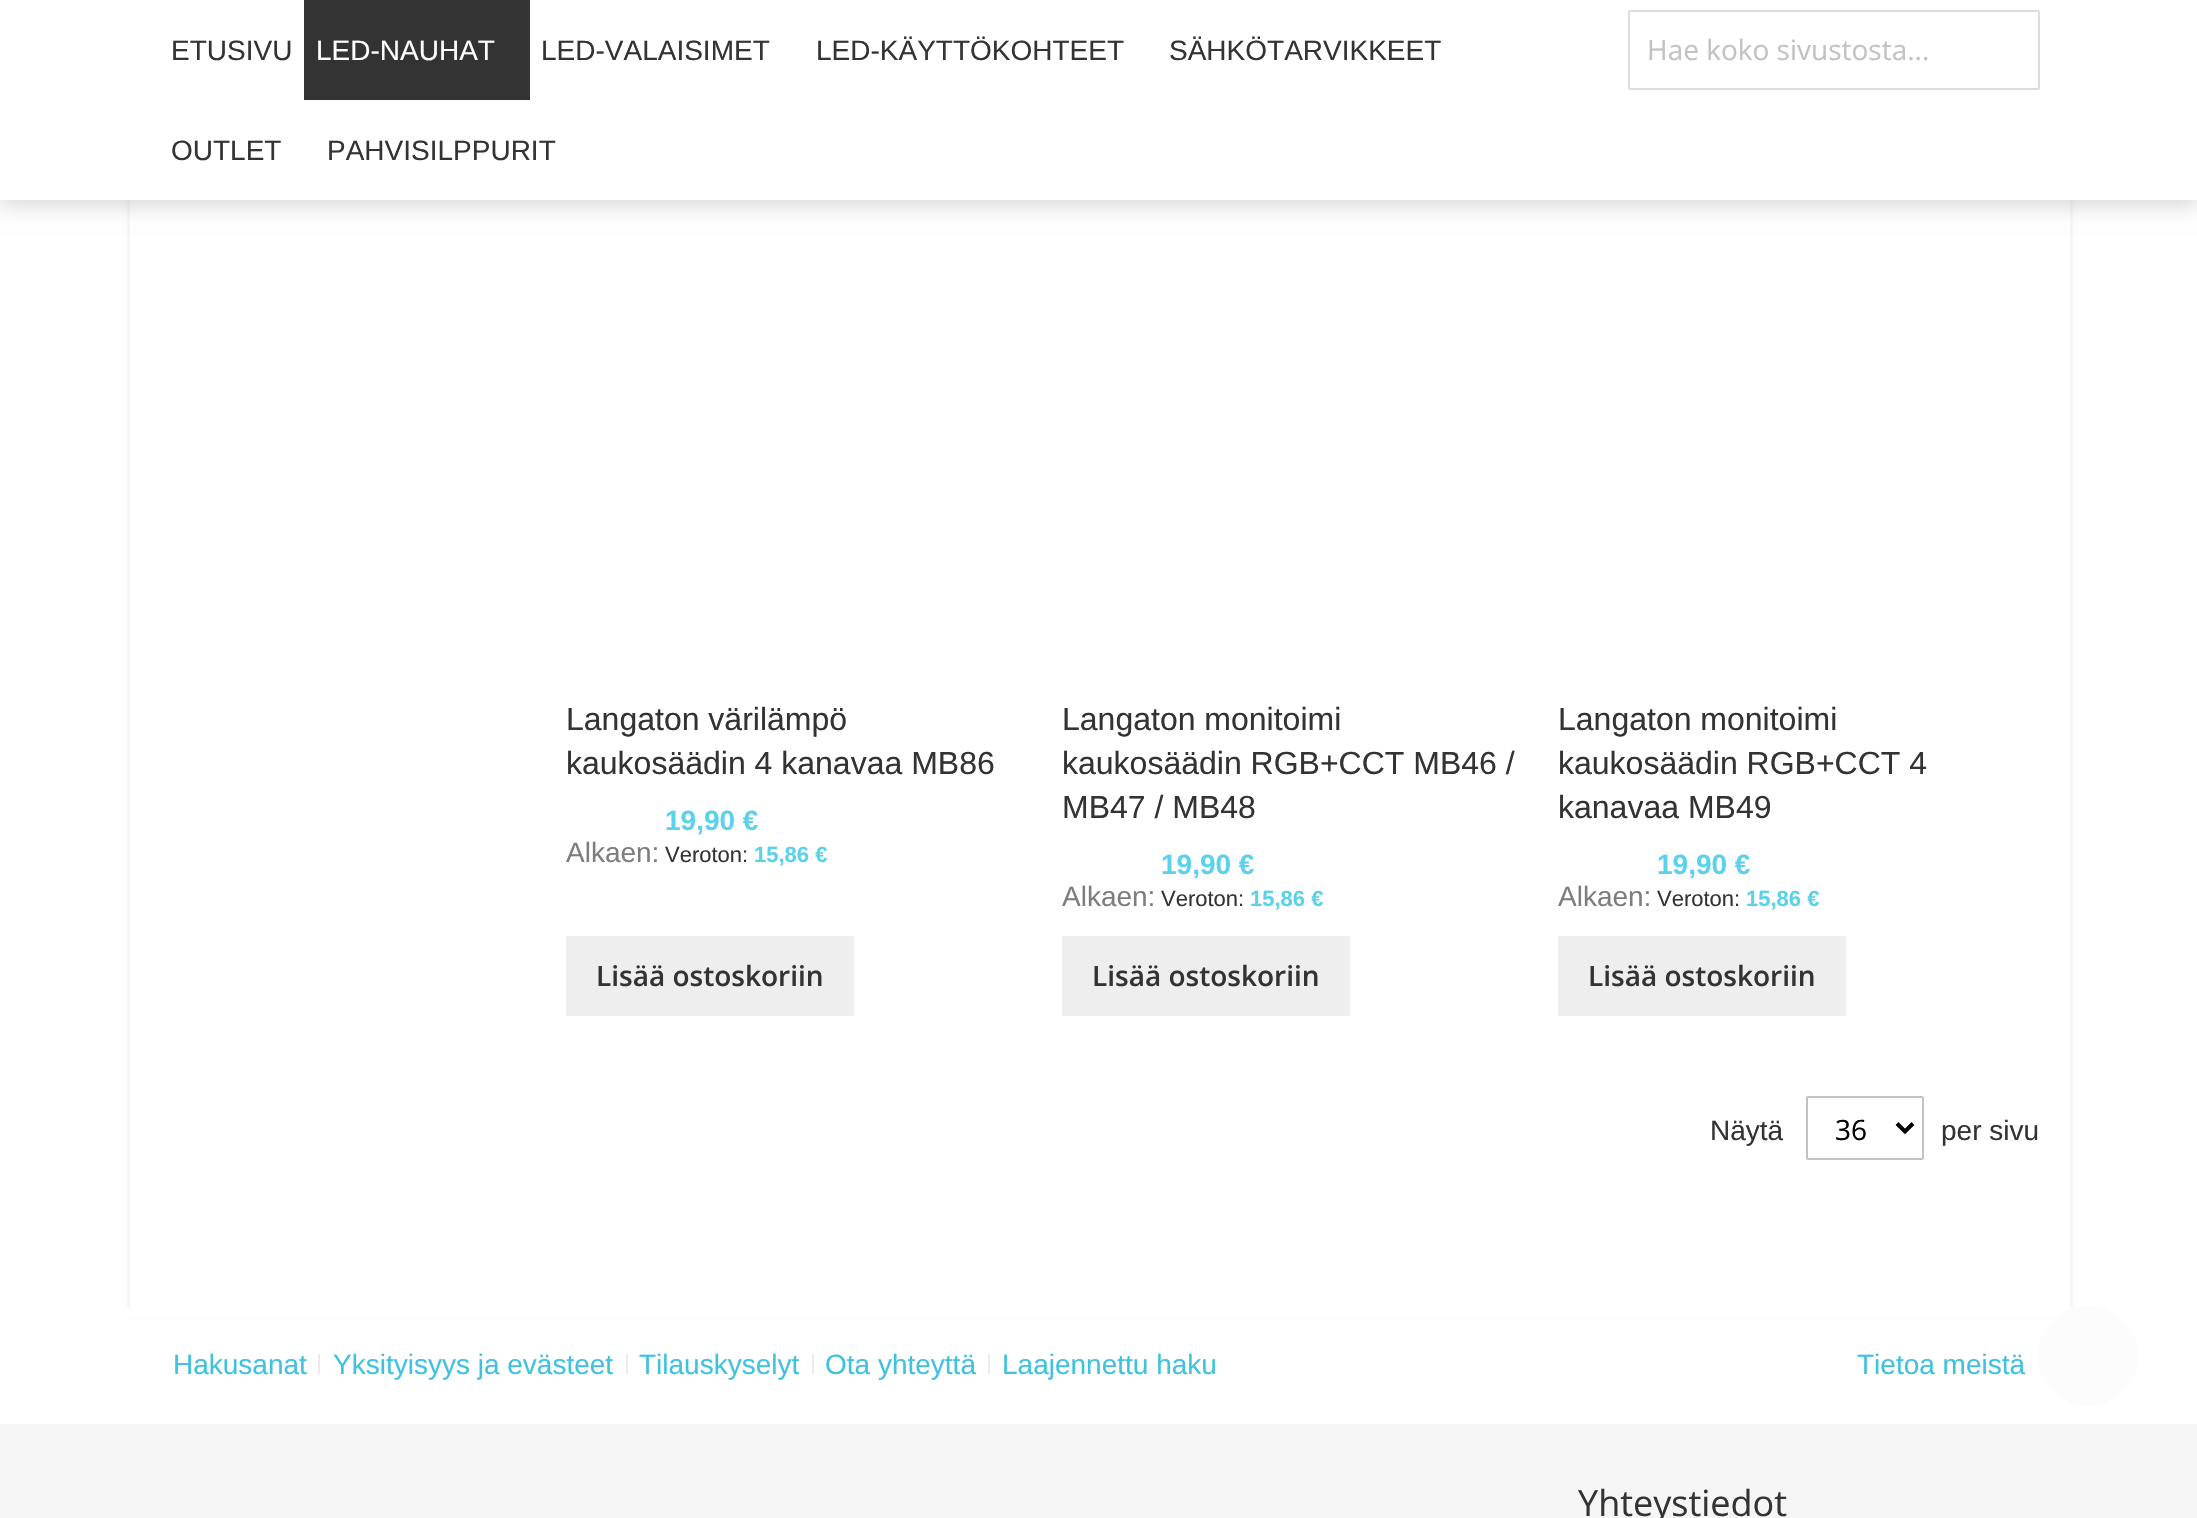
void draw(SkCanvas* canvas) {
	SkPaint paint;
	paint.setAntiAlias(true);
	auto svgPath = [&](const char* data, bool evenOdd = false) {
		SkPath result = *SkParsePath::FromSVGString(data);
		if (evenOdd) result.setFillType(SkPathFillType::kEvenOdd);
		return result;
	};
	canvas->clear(0xffffffff);
	paint.setColor(0x26000000);
	paint.setMaskFilter(SkMaskFilter::MakeBlur(kNormal_SkBlurStyle, 10));
	canvas->drawRect(SkRect::MakeXYWH(0, 6, 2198, 200), paint);
	paint.setMaskFilter(nullptr);
	canvas->save();
	canvas->clipPath(svgPath("M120 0H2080V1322H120ZM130-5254H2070V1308H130Z", true), true);
	paint.setColor(0x1a000000);
	paint.setMaskFilter(SkMaskFilter::MakeBlur(kNormal_SkBlurStyle, 3));
	canvas->drawRect(SkRect::MakeXYWH(130, -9, 1940, 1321), paint);
	paint.setMaskFilter(nullptr);
	canvas->restore();
	paint.setColor(0xffffffff);
	canvas->drawRect(SkRect::MakeXYWH(0, 0, 2197, 200), paint);
	SkFont f1(fontMgr->matchFamilyStyle("Liberation Sans", SkFontStyle::Normal()), 28);
	f1.setSubpixel(true);
	paint.setColor(0xff333333);
	canvas->drawString("ETUSIVU", 171, 60, f1, paint);
	canvas->drawRect(SkRect::MakeXYWH(304, 0, 226, 100), paint);
	paint.setColor(0xffffffff);
	canvas->drawString("LED-NAUHAT", 316, 60, f1, paint);
	paint.setColor(0xff333333);
	canvas->drawString("LED-VALAISIMET", 541, 60, f1, paint);
	canvas->drawString("LED-KÄYTTÖKOHTEET", 816, 60, f1, paint);
	canvas->drawString("SÄHKÖTARVIKKEET", 1169, 60, f1, paint);
	canvas->drawString("OUTLET", 171, 160, f1, paint);
	canvas->drawString("PAHVISILPPURIT", 327, 160, f1, paint);
	paint.setStroke(true);
	paint.setStrokeWidth(2);
	paint.setColor(0xffdddddd);
	canvas->drawRoundRect(SkRect::MakeXYWH(1629, 11, 410, 78), 1, 1, paint);
	SkFont f2(fontMgr->matchFamilyStyle("Open Sans", SkFontStyle::Normal()), 28);
	f2.setSubpixel(true);
	paint.setStroke(false);
	paint.setColor(0xffc2c2c2);
	canvas->drawString("Hae koko sivustosta...", 1647, 60, f2, paint);
	SkFont f3(fontMgr->matchFamilyStyle("Liberation Sans", SkFontStyle::Normal()), 32);
	f3.setSubpixel(true);
	paint.setColor(0xff333333);
	canvas->drawString("Langaton värilämpö", 566, 730, f3, paint);
	canvas->drawString("kaukosäädin 4 kanavaa MB86", 566, 774, f3, paint);
	paint.setColor(0xff7d7d7d);
	canvas->drawString("Alkaen:", 566, 862, f1, paint);
	SkFont f4(fontMgr->matchFamilyStyle("Liberation Sans", SkFontStyle::Bold()), 28);
	f4.setSubpixel(true);
	paint.setColor(0xff5bd2ec);
	canvas->drawString("19,90 €", 665, 830, f4, paint);
	SkFont f5(fontMgr->matchFamilyStyle("Liberation Sans", SkFontStyle::Normal()), 22);
	f5.setSubpixel(true);
	paint.setColor(0xff333333);
	canvas->drawString("Veroton:", 665, 862, f5, paint);
	SkFont f6(fontMgr->matchFamilyStyle("Liberation Sans", SkFontStyle::Bold()), 22);
	f6.setSubpixel(true);
	paint.setColor(0xff5bd2ec);
	canvas->drawString("15,86 €", 754, 862, f6, paint);
	paint.setColor(0xffeeeeee);
	canvas->drawRect(SkRect::MakeXYWH(566, 936, 288, 80), paint);
	SkFont f7(fontMgr->matchFamilyStyle("Open Sans", SkFontStyle(600, SkFontStyle::kNormal_Width, SkFontStyle::kUpright_Slant)), 28);
	f7.setSubpixel(true);
	paint.setColor(0xff333333);
	canvas->drawString("Lisää ostoskoriin", 596, 986, f7, paint);
	canvas->drawString("Langaton monitoimi", 1062, 730, f3, paint);
	canvas->drawString("kaukosäädin RGB+CCT MB46 /", 1062, 774, f3, paint);
	canvas->drawString("MB47 / MB48", 1062, 818, f3, paint);
	paint.setColor(0xff7d7d7d);
	canvas->drawString("Alkaen:", 1062, 906, f1, paint);
	paint.setColor(0xff5bd2ec);
	canvas->drawString("19,90 €", 1161, 874, f4, paint);
	paint.setColor(0xff333333);
	canvas->drawString("Veroton:", 1161, 906, f5, paint);
	paint.setColor(0xff5bd2ec);
	canvas->drawString("15,86 €", 1250, 906, f6, paint);
	paint.setColor(0xffeeeeee);
	canvas->drawRect(SkRect::MakeXYWH(1062, 936, 288, 80), paint);
	paint.setColor(0xff333333);
	canvas->drawString("Lisää ostoskoriin", 1092, 986, f7, paint);
	canvas->drawString("Langaton monitoimi", 1558, 730, f3, paint);
	canvas->drawString("kaukosäädin RGB+CCT 4", 1558, 774, f3, paint);
	canvas->drawString("kanavaa MB49", 1558, 818, f3, paint);
	paint.setColor(0xff7d7d7d);
	canvas->drawString("Alkaen:", 1558, 906, f1, paint);
	paint.setColor(0xff5bd2ec);
	canvas->drawString("19,90 €", 1657, 874, f4, paint);
	paint.setColor(0xff333333);
	canvas->drawString("Veroton:", 1657, 906, f5, paint);
	paint.setColor(0xff5bd2ec);
	canvas->drawString("15,86 €", 1746, 906, f6, paint);
	paint.setColor(0xffeeeeee);
	canvas->drawRect(SkRect::MakeXYWH(1558, 936, 288, 80), paint);
	paint.setColor(0xff333333);
	canvas->drawString("Lisää ostoskoriin", 1588, 986, f7, paint);
	canvas->drawString("Näytä", 1710, 1140, f1, paint);
	paint.setStroke(true);
	paint.setColor(0xffc2c2c2);
	canvas->drawRoundRect(SkRect::MakeXYWH(1807, 1097, 116, 62), 1, 1, paint);
	paint.setStrokeWidth(4);
	paint.setColor(0xff000000);
	canvas->drawPath(svgPath("M1897 1123.5L1905 1131.5L1913 1123.5"), paint);
	paint.setStroke(false);
	canvas->drawString("36", 1835, 1140, f2, paint);
	paint.setColor(0xff333333);
	canvas->drawString("per sivu", 1941, 1140, f1, paint);
	paint.setColor(0xfff5f5f5);
	canvas->drawRect(SkRect::MakeXYWH(0, 1424, 2197, 94), paint);
	paint.setColor(0xffffffff);
	canvas->drawRect(SkRect::MakeXYWH(126, 1308, 1948, 8), paint);
	paint.setColor(0xffebebeb);
	canvas->drawRect(SkRect::MakeXYWH(318, 1354, 2, 20), paint);
	paint.setColor(0xff3ec2df);
	canvas->drawString("Hakusanat", 173, 1374, f1, paint);
	paint.setColor(0xffebebeb);
	canvas->drawRect(SkRect::MakeXYWH(626, 1354, 2, 20), paint);
	paint.setColor(0xff3ec2df);
	canvas->drawString("Yksityisyys ja evästeet", 333, 1374, f1, paint);
	paint.setColor(0xffebebeb);
	canvas->drawRect(SkRect::MakeXYWH(812, 1354, 2, 20), paint);
	paint.setColor(0xff3ec2df);
	canvas->drawString("Tilauskyselyt", 639, 1374, f1, paint);
	paint.setColor(0xffebebeb);
	canvas->drawRect(SkRect::MakeXYWH(988, 1354, 2, 20), paint);
	paint.setColor(0xff3ec2df);
	canvas->drawString("Ota yhteyttä", 825, 1374, f1, paint);
	canvas->drawString("Laajennettu haku", 1002, 1374, f1, paint);
	canvas->drawString("Tietoa meistä", 1857, 1374, f1, paint);
	paint.setColor(0xfffcfcfc);
	canvas->drawCircle(2088, 1356, 50, paint);
	SkFont f8(fontMgr->matchFamilyStyle("Open Sans", SkFontStyle::Normal()), 36);
	f8.setSubpixel(true);
	paint.setColor(0xff333333);
	canvas->drawString("Yhteystiedot", 1578, 1516, f8, paint);
}
